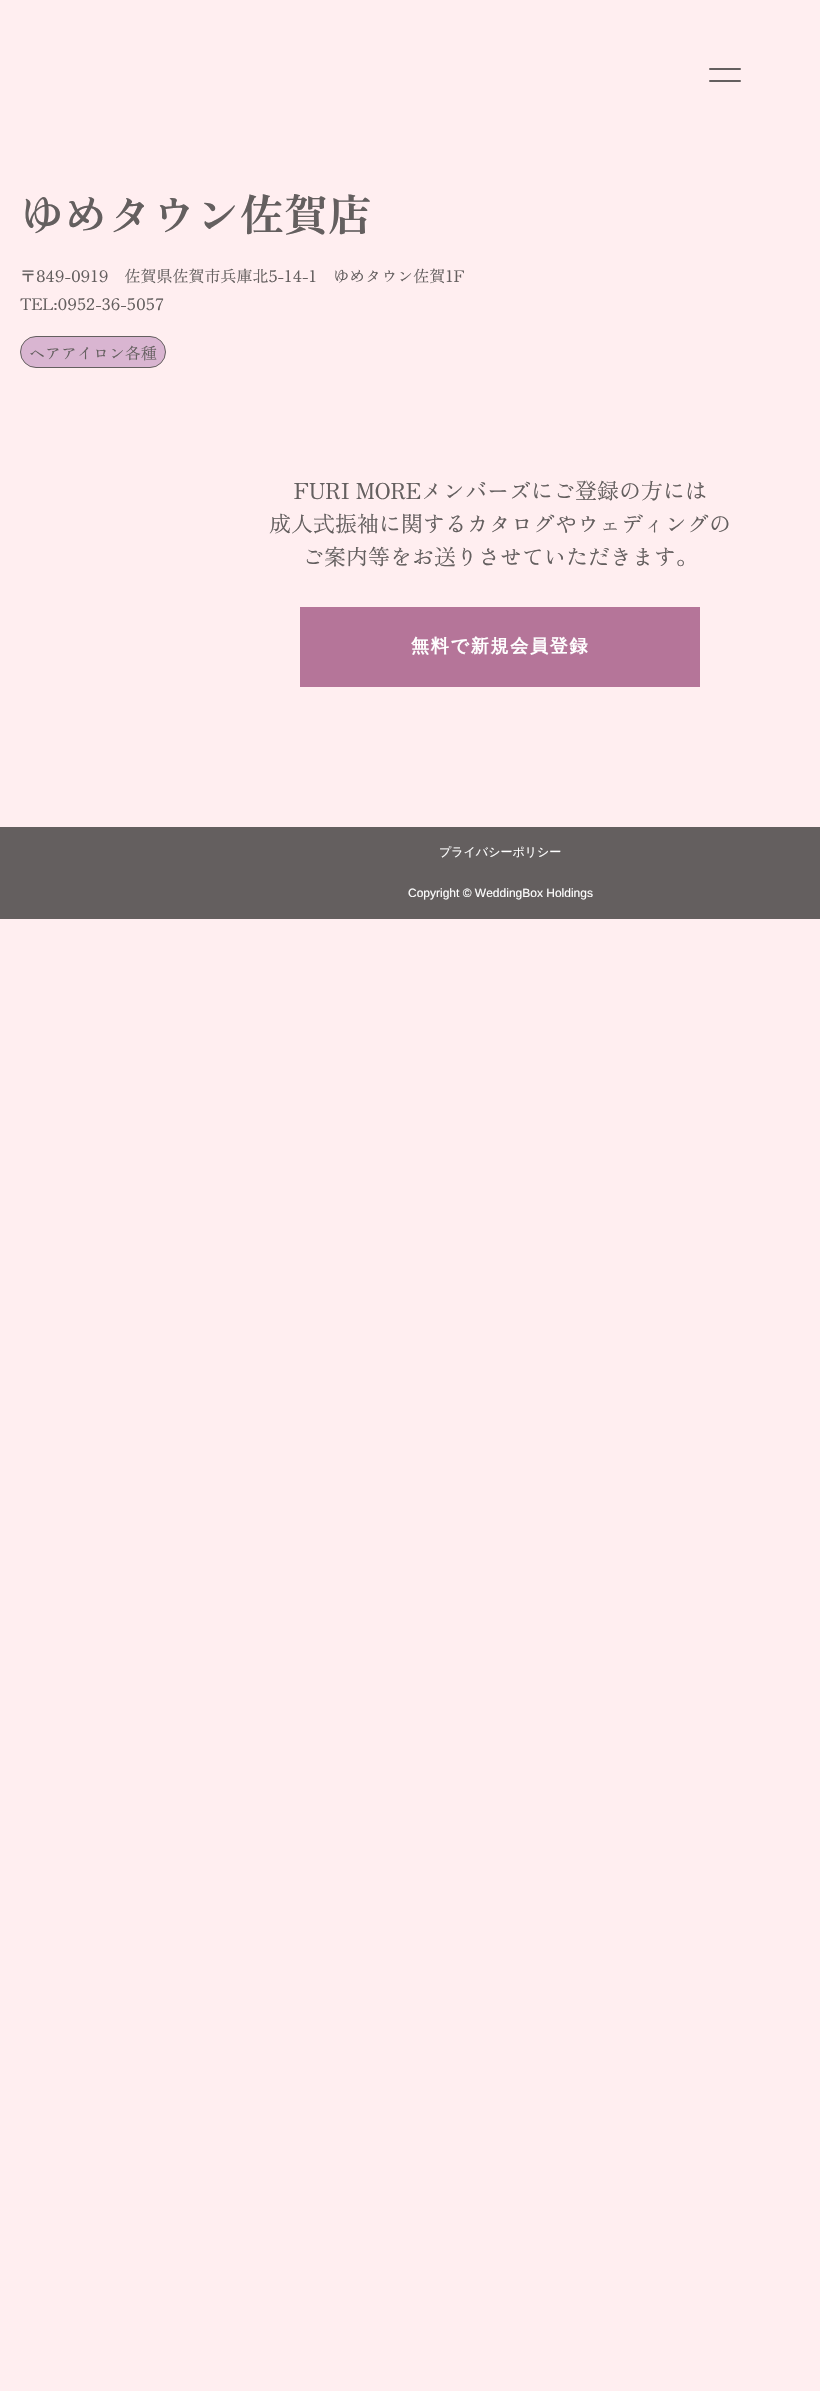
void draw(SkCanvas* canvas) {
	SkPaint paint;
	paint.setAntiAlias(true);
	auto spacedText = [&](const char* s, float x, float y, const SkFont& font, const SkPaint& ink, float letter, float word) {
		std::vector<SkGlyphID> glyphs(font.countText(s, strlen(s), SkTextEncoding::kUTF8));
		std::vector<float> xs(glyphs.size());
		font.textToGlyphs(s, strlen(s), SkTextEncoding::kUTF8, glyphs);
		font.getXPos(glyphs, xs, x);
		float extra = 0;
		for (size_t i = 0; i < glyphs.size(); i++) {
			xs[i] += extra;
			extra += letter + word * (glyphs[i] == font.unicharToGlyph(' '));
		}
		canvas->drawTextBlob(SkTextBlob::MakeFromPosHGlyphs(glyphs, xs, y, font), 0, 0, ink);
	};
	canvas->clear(0xffffeef0);
	paint.setColor(0xff645f5f);
	canvas->drawRoundRect(SkRect::MakeXYWH(709, 68, 32, 2), 1, 1, paint);
	canvas->drawRoundRect(SkRect::MakeXYWH(709, 80, 32, 2), 1, 1, paint);
	SkFont f1(fontMgr->matchFamilyStyle("Zen Old Mincho", SkFontStyle::Bold()), 44);
	f1.setSubpixel(true);
	canvas->drawString("ゆめタウン佐賀店", 20, 231, f1, paint);
	SkFont f2(fontMgr->matchFamilyStyle("Zen Old Mincho", SkFontStyle::Normal()), 16);
	f2.setSubpixel(true);
	canvas->drawString("〒849-0919　佐賀県佐賀市兵庫北5-14-1　ゆめタウン佐賀1F", 20, 282, f2, paint);
	canvas->drawString("TEL:0952-36-5057", 20, 310, f2, paint);
	paint.setColor(0xffd9b5d1);
	canvas->drawRoundRect(SkRect::MakeXYWH(20.5, 336.5, 145, 31), 15.5, 15.5, paint);
	paint.setStroke(true);
	paint.setStrokeWidth(1);
	paint.setColor(0xff645f5f);
	canvas->drawRoundRect(SkRect::MakeXYWH(20.5, 336.5, 145, 31), 15.5, 15.5, paint);
	paint.setStroke(false);
	canvas->drawString("ヘアアイロン各種", 29, 359, f2, paint);
	SkFont f3(fontMgr->matchFamilyStyle("Zen Old Mincho", SkFontStyle::Normal()), 22);
	f3.setSubpixel(true);
	canvas->drawString("FURI MOREメンバーズにご登録の方には", 294, 499, f3, paint);
	canvas->drawString("成人式振袖に関するカタログやウェディングの", 269, 532, f3, paint);
	canvas->drawString("ご案内等をお送りさせていただきます。", 302, 565, f3, paint);
	paint.setColor(0xffb57599);
	canvas->drawRect(SkRect::MakeXYWH(300, 607, 400, 80), paint);
	SkFont f4(fontMgr->matchFamilyStyle("WenQuanYi Zen Hei", SkFontStyle::Bold()), 18);
	f4.setSubpixel(true);
	paint.setColor(0xffffffff);
	spacedText("無料で新規会員登録", 411, 652, f4, paint, 1.75, 0);
	paint.setColor(0xff645f5f);
	canvas->drawRect(SkRect::MakeXYWH(0, 827, 820, 92), paint);
	SkFont f5(fontMgr->matchFamilyStyle("WenQuanYi Zen Hei", SkFontStyle(500, SkFontStyle::kNormal_Width, SkFontStyle::kUpright_Slant)), 12);
	f5.setSubpixel(true);
	paint.setColor(0xffffffff);
	canvas->drawString("プライバシーポリシー", 439, 856, f5, paint);
	SkFont f6(fontMgr->matchFamilyStyle("Liberation Sans", SkFontStyle::Normal()), 12);
	f6.setSubpixel(true);
	canvas->drawString("Copyright © WeddingBox Holdings", 408, 897, f6, paint);
}
